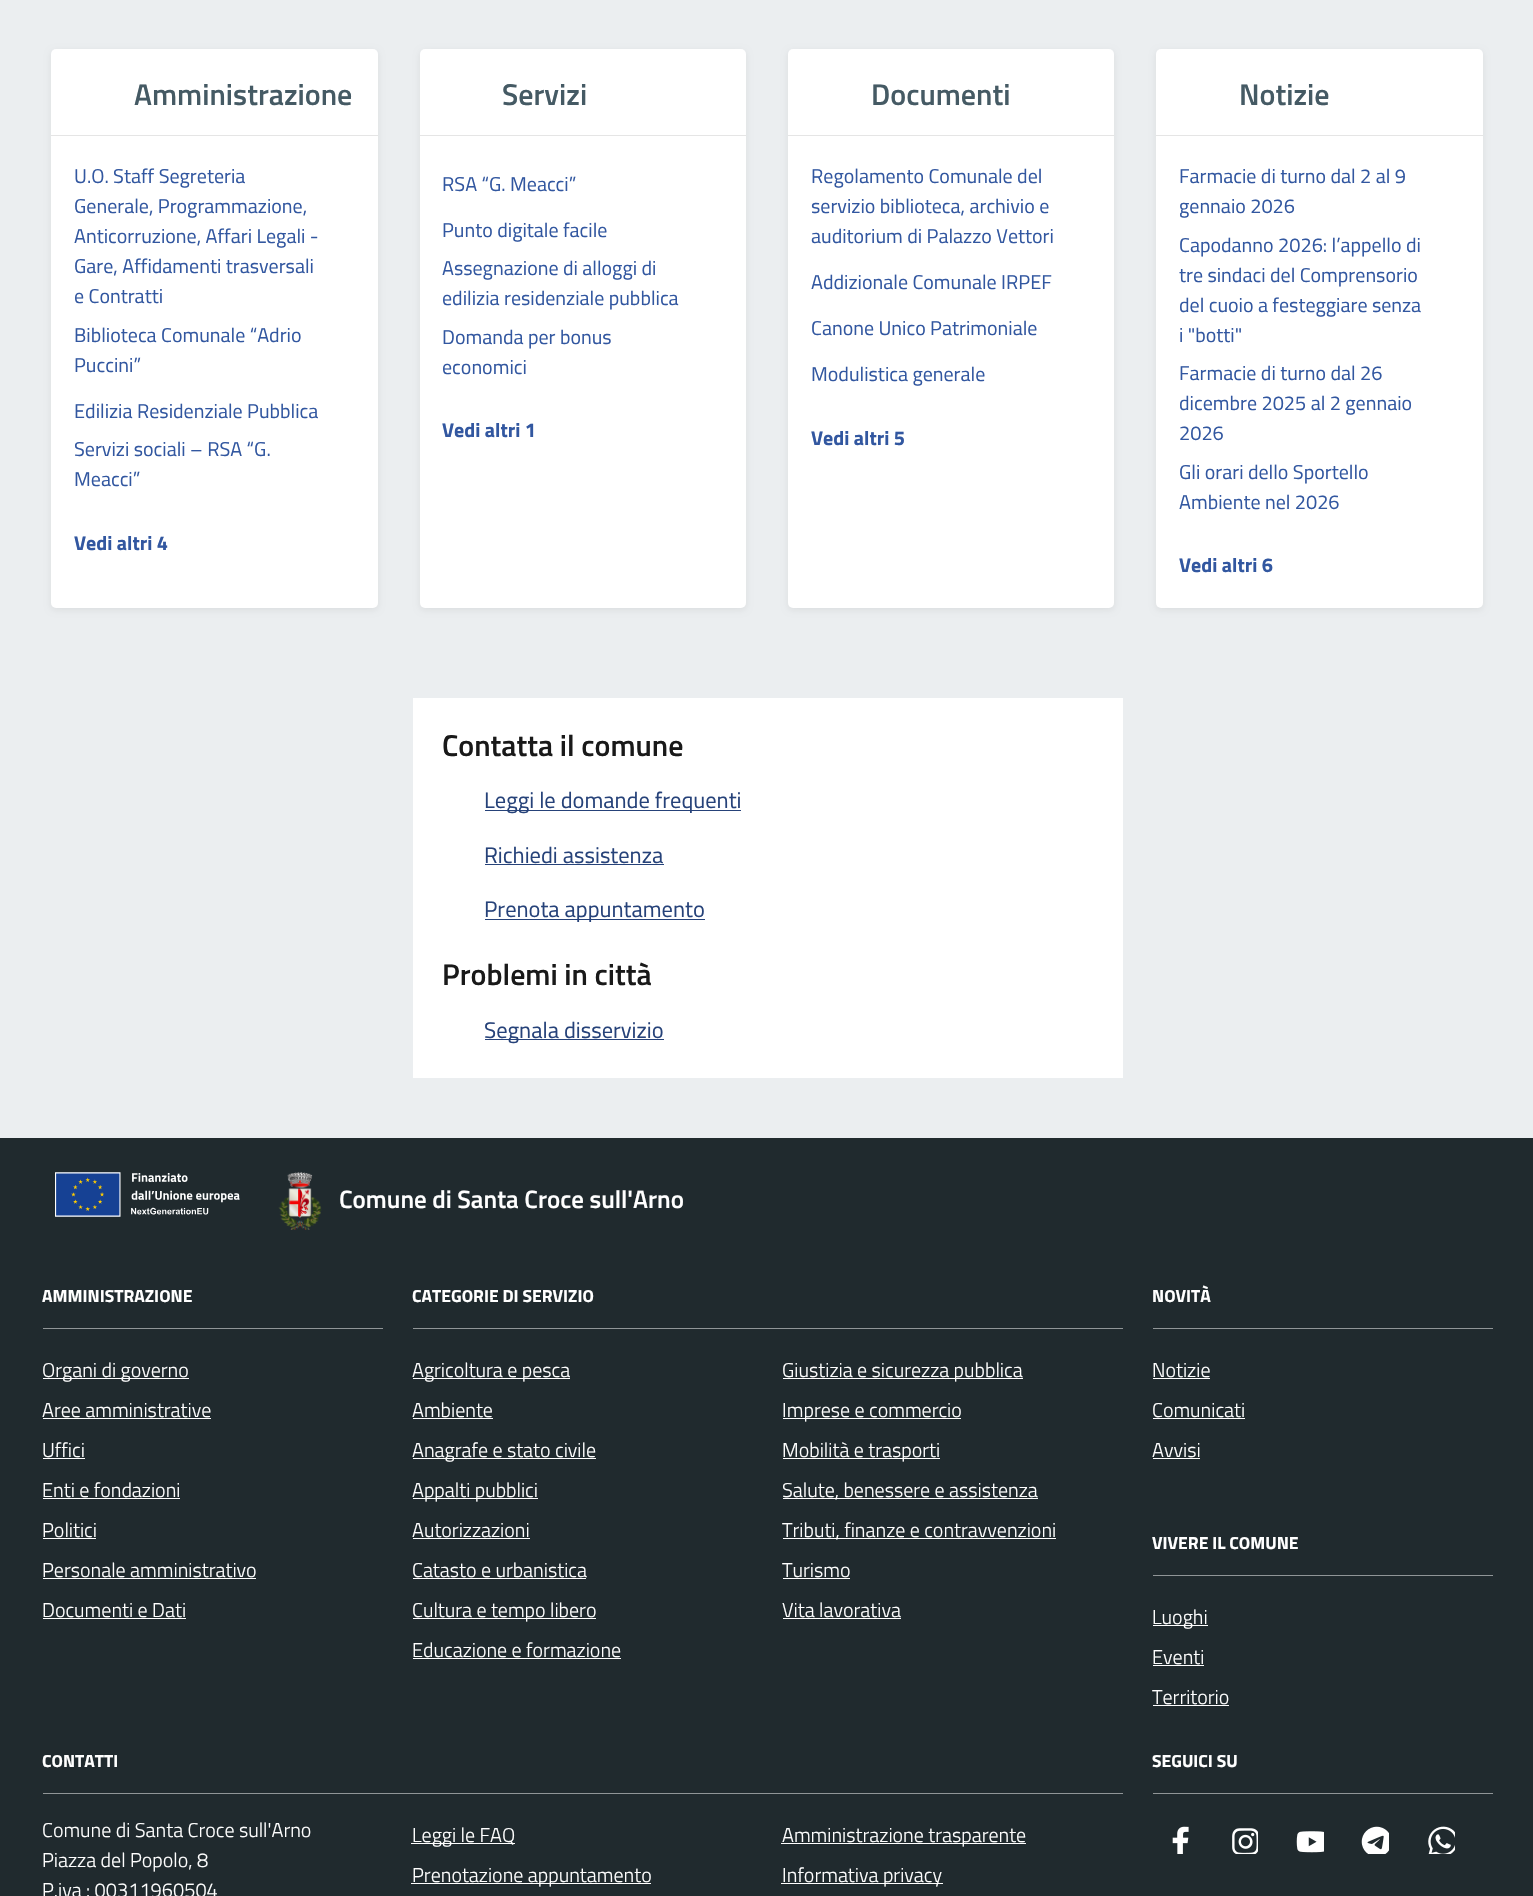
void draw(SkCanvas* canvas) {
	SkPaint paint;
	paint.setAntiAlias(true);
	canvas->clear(0xffebeef0);
	paint.setColor(0x12000000);
	paint.setMaskFilter(SkMaskFilter::MakeBlur(kNormal_SkBlurStyle, 3));
	canvas->drawRoundRect(SkRect::MakeXYWH(51, 51, 327, 559), 5, 5, paint);
	paint.setMaskFilter(nullptr);
	paint.setColor(0xffffffff);
	canvas->drawRoundRect(SkRect::MakeXYWH(51, 49, 327, 559), 5, 5, paint);
	paint.setColor(0xffe5e5e5);
	canvas->drawRect(SkRect::MakeXYWH(51, 135, 327, 1), paint);
	SkFont f1(fontMgr->matchFamilyStyle("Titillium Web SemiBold", SkFontStyle(600, SkFontStyle::kNormal_Width, SkFontStyle::kUpright_Slant)), 30);
	f1.setSubpixel(true);
	paint.setColor(0xff455a64);
	canvas->drawString("Amministrazione", 134, 105, f1, paint);
	SkFont f2(fontMgr->matchFamilyStyle("Titillium Web", SkFontStyle::Normal()), 20);
	f2.setSubpixel(true);
	paint.setColor(0xff3257a0);
	canvas->drawString("U.O. Staff Segreteria", 74, 183, f2, paint);
	canvas->drawString("Generale, Programmazione,", 74, 213, f2, paint);
	canvas->drawString("Anticorruzione, Affari Legali -", 74, 243, f2, paint);
	canvas->drawString("Gare, Affidamenti trasversali", 74, 273, f2, paint);
	canvas->drawString("e Contratti", 74, 303, f2, paint);
	canvas->drawString("Biblioteca Comunale “Adrio", 74, 342, f2, paint);
	canvas->drawString("Puccini”", 74, 372, f2, paint);
	canvas->drawString("Edilizia Residenziale Pubblica", 74, 418, f2, paint);
	canvas->drawString("Servizi sociali – RSA “G.", 74, 456, f2, paint);
	canvas->drawString("Meacci”", 74, 486, f2, paint);
	SkFont f3(fontMgr->matchFamilyStyle("Titillium Web", SkFontStyle::Bold()), 20);
	f3.setSubpixel(true);
	canvas->drawString("Vedi altri 4", 74, 550, f3, paint);
	paint.setColor(0x12000000);
	paint.setMaskFilter(SkMaskFilter::MakeBlur(kNormal_SkBlurStyle, 3));
	canvas->drawRoundRect(SkRect::MakeXYWH(420, 51, 326, 559), 5, 5, paint);
	paint.setMaskFilter(nullptr);
	paint.setColor(0xffffffff);
	canvas->drawRoundRect(SkRect::MakeXYWH(420, 49, 326, 559), 5, 5, paint);
	paint.setColor(0xffe5e5e5);
	canvas->drawRect(SkRect::MakeXYWH(420, 135, 326, 1), paint);
	paint.setColor(0xff455a64);
	canvas->drawString("Servizi", 502, 105, f1, paint);
	paint.setColor(0xff3257a0);
	canvas->drawString("RSA “G. Meacci”", 442, 191, f2, paint);
	canvas->drawString("Punto digitale facile", 442, 237, f2, paint);
	canvas->drawString("Assegnazione di alloggi di", 442, 275, f2, paint);
	canvas->drawString("edilizia residenziale pubblica", 442, 305, f2, paint);
	canvas->drawString("Domanda per bonus", 442, 344, f2, paint);
	canvas->drawString("economici", 442, 374, f2, paint);
	canvas->drawString("Vedi altri 1", 442, 437, f3, paint);
	paint.setColor(0x12000000);
	paint.setMaskFilter(SkMaskFilter::MakeBlur(kNormal_SkBlurStyle, 3));
	canvas->drawRoundRect(SkRect::MakeXYWH(788, 51, 326, 559), 5, 5, paint);
	paint.setMaskFilter(nullptr);
	paint.setColor(0xffffffff);
	canvas->drawRoundRect(SkRect::MakeXYWH(788, 49, 326, 559), 5, 5, paint);
	paint.setColor(0xffe5e5e5);
	canvas->drawRect(SkRect::MakeXYWH(788, 135, 326, 1), paint);
	paint.setColor(0xff455a64);
	canvas->drawString("Documenti", 871, 105, f1, paint);
	paint.setColor(0xff3257a0);
	canvas->drawString("Regolamento Comunale del", 811, 183, f2, paint);
	canvas->drawString("servizio biblioteca, archivio e", 811, 213, f2, paint);
	canvas->drawString("auditorium di Palazzo Vettori", 811, 243, f2, paint);
	canvas->drawString("Addizionale Comunale IRPEF", 811, 289, f2, paint);
	canvas->drawString("Canone Unico Patrimoniale", 811, 335, f2, paint);
	canvas->drawString("Modulistica generale", 811, 381, f2, paint);
	canvas->drawString("Vedi altri 5", 811, 445, f3, paint);
	paint.setColor(0x12000000);
	paint.setMaskFilter(SkMaskFilter::MakeBlur(kNormal_SkBlurStyle, 3));
	canvas->drawRoundRect(SkRect::MakeXYWH(1156, 51, 327, 559), 5, 5, paint);
	paint.setMaskFilter(nullptr);
	paint.setColor(0xffffffff);
	canvas->drawRoundRect(SkRect::MakeXYWH(1156, 49, 327, 559), 5, 5, paint);
	paint.setColor(0xffe5e5e5);
	canvas->drawRect(SkRect::MakeXYWH(1156, 135, 327, 1), paint);
	paint.setColor(0xff455a64);
	canvas->drawString("Notizie", 1239, 105, f1, paint);
	paint.setColor(0xff3257a0);
	canvas->drawString("Farmacie di turno dal 2 al 9", 1179, 183, f2, paint);
	canvas->drawString("gennaio 2026", 1179, 213, f2, paint);
	canvas->drawString("Capodanno 2026: l’appello di", 1179, 252, f2, paint);
	canvas->drawString("tre sindaci del Comprensorio", 1179, 282, f2, paint);
	canvas->drawString("del cuoio a festeggiare senza", 1179, 312, f2, paint);
	canvas->drawString("i \"botti\"", 1179, 342, f2, paint);
	canvas->drawString("Farmacie di turno dal 26", 1179, 380, f2, paint);
	canvas->drawString("dicembre 2025 al 2 gennaio", 1179, 410, f2, paint);
	canvas->drawString("2026", 1179, 440, f2, paint);
	canvas->drawString("Gli orari dello Sportello", 1179, 479, f2, paint);
	canvas->drawString("Ambiente nel 2026", 1179, 509, f2, paint);
	canvas->drawString("Vedi altri 6", 1179, 572, f3, paint);
	paint.setColor(0xffffffff);
	canvas->drawRect(SkRect::MakeXYWH(413, 698, 710, 380), paint);
	paint.setColor(0xff191919);
	canvas->drawString("Contatta il comune", 442, 756, f1, paint);
	paint.setColor(0xff264279);
	canvas->drawRect(SkRect::MakeXYWH(485, 810, 256, 1), paint);
	SkFont f4(fontMgr->matchFamilyStyle("Titillium Web", SkFontStyle::Normal()), 22.5);
	f4.setSubpixel(true);
	canvas->drawString("Leggi le domande frequenti", 484, 808, f4, paint);
	canvas->drawString("Richiedi assistenza", 484, 863, f4, paint);
	canvas->drawRect(SkRect::MakeXYWH(485, 864, 179, 1), paint);
	canvas->drawRect(SkRect::MakeXYWH(485, 919, 220, 1), paint);
	canvas->drawString("Prenota appuntamento", 484, 917, f4, paint);
	paint.setColor(0xff191919);
	canvas->drawString("Problemi in città", 442, 985, f1, paint);
	paint.setColor(0xff264279);
	canvas->drawRect(SkRect::MakeXYWH(485, 1039, 179, 1), paint);
	canvas->drawString("Segnala disservizio", 484, 1038, f4, paint);
	paint.setColor(0xff202a2e);
	canvas->drawRect(SkRect::MakeXYWH(0, 1138, 1533, 758), paint);
	canvas->drawImageRect(SkImages::DeferredFromEncodedData(SkData::MakeFromFileName("img1.png")), SkRect::MakeXYWH(55, 1172, 185, 45), SkSamplingOptions());
	canvas->drawImageRect(SkImages::DeferredFromEncodedData(SkData::MakeFromFileName("img2.png")), SkRect::MakeXYWH(278, 1172, 44, 58), SkSamplingOptions());
	SkFont f5(fontMgr->matchFamilyStyle("Titillium Web SemiBold", SkFontStyle(600, SkFontStyle::kNormal_Width, SkFontStyle::kUpright_Slant)), 25);
	f5.setSubpixel(true);
	paint.setColor(0xffffffff);
	canvas->drawString("Comune di Santa Croce sull'Arno", 339, 1208, f5, paint);
	paint.setColor(0xff909597);
	canvas->drawRect(SkRect::MakeXYWH(43, 1328, 340, 1), paint);
	SkFont f6(fontMgr->matchFamilyStyle("Titillium Web", SkFontStyle::Bold()), 17.5);
	f6.setSubpixel(true);
	paint.setColor(0xffffffff);
	canvas->drawString("AMMINISTRAZIONE", 42, 1302, f6, paint);
	canvas->drawRect(SkRect::MakeXYWH(43, 1378, 146, 1), paint);
	SkFont f7(fontMgr->matchFamilyStyle("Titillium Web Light", SkFontStyle(300, SkFontStyle::kNormal_Width, SkFontStyle::kUpright_Slant)), 20);
	f7.setSubpixel(true);
	canvas->drawString("Organi di governo", 42, 1377, f7, paint);
	canvas->drawString("Aree amministrative", 42, 1417, f7, paint);
	canvas->drawRect(SkRect::MakeXYWH(43, 1418, 168, 1), paint);
	canvas->drawString("Uffici", 42, 1457, f7, paint);
	canvas->drawRect(SkRect::MakeXYWH(43, 1458, 42, 1), paint);
	canvas->drawString("Enti e fondazioni", 42, 1497, f7, paint);
	canvas->drawRect(SkRect::MakeXYWH(43, 1498, 137, 1), paint);
	canvas->drawString("Politici", 42, 1537, f7, paint);
	canvas->drawRect(SkRect::MakeXYWH(43, 1538, 53, 1), paint);
	canvas->drawString("Personale amministrativo", 42, 1577, f7, paint);
	canvas->drawRect(SkRect::MakeXYWH(43, 1578, 213, 1), paint);
	canvas->drawString("Documenti e Dati", 42, 1617, f7, paint);
	canvas->drawRect(SkRect::MakeXYWH(43, 1618, 143, 1), paint);
	paint.setColor(0xff909597);
	canvas->drawRect(SkRect::MakeXYWH(413, 1328, 710, 1), paint);
	paint.setColor(0xffffffff);
	canvas->drawString("CATEGORIE DI SERVIZIO", 412, 1302, f6, paint);
	canvas->drawRect(SkRect::MakeXYWH(413, 1378, 157, 1), paint);
	canvas->drawString("Agricoltura e pesca", 412, 1377, f7, paint);
	canvas->drawString("Ambiente", 412, 1417, f7, paint);
	canvas->drawRect(SkRect::MakeXYWH(413, 1418, 80, 1), paint);
	canvas->drawRect(SkRect::MakeXYWH(413, 1458, 183, 1), paint);
	canvas->drawString("Anagrafe e stato civile", 412, 1457, f7, paint);
	canvas->drawRect(SkRect::MakeXYWH(413, 1498, 125, 1), paint);
	canvas->drawString("Appalti pubblici", 412, 1497, f7, paint);
	canvas->drawString("Autorizzazioni", 412, 1537, f7, paint);
	canvas->drawRect(SkRect::MakeXYWH(413, 1538, 117, 1), paint);
	canvas->drawString("Catasto e urbanistica", 412, 1577, f7, paint);
	canvas->drawRect(SkRect::MakeXYWH(413, 1578, 173, 1), paint);
	canvas->drawRect(SkRect::MakeXYWH(413, 1618, 183, 1), paint);
	canvas->drawString("Cultura e tempo libero", 412, 1617, f7, paint);
	canvas->drawString("Educazione e formazione", 412, 1657, f7, paint);
	canvas->drawRect(SkRect::MakeXYWH(413, 1658, 208, 1), paint);
	canvas->drawRect(SkRect::MakeXYWH(783, 1378, 240, 1), paint);
	canvas->drawString("Giustizia e sicurezza pubblica", 782, 1377, f7, paint);
	canvas->drawRect(SkRect::MakeXYWH(783, 1418, 178, 1), paint);
	canvas->drawString("Imprese e commercio", 782, 1417, f7, paint);
	canvas->drawRect(SkRect::MakeXYWH(783, 1458, 157, 1), paint);
	canvas->drawString("Mobilità e trasporti", 782, 1457, f7, paint);
	canvas->drawRect(SkRect::MakeXYWH(783, 1498, 255, 1), paint);
	canvas->drawString("Salute, benessere e assistenza", 782, 1497, f7, paint);
	canvas->drawRect(SkRect::MakeXYWH(783, 1538, 273, 1), paint);
	canvas->drawString("Tributi, finanze e contravvenzioni", 782, 1537, f7, paint);
	canvas->drawString("Turismo", 782, 1577, f7, paint);
	canvas->drawRect(SkRect::MakeXYWH(783, 1578, 67, 1), paint);
	canvas->drawString("Vita lavorativa", 782, 1617, f7, paint);
	canvas->drawRect(SkRect::MakeXYWH(783, 1618, 118, 1), paint);
	paint.setColor(0xff909597);
	canvas->drawRect(SkRect::MakeXYWH(1153, 1328, 340, 1), paint);
	paint.setColor(0xffffffff);
	canvas->drawString("NOVITÀ", 1152, 1302, f6, paint);
	canvas->drawString("Notizie", 1152, 1377, f7, paint);
	canvas->drawRect(SkRect::MakeXYWH(1153, 1378, 57, 1), paint);
	canvas->drawString("Comunicati", 1152, 1417, f7, paint);
	canvas->drawRect(SkRect::MakeXYWH(1153, 1418, 92, 1), paint);
	canvas->drawString("Avvisi", 1152, 1457, f7, paint);
	canvas->drawRect(SkRect::MakeXYWH(1153, 1458, 47, 1), paint);
	paint.setColor(0xff909597);
	canvas->drawRect(SkRect::MakeXYWH(1153, 1575, 340, 1), paint);
	paint.setColor(0xffffffff);
	canvas->drawString("VIVERE IL COMUNE", 1152, 1549, f6, paint);
	canvas->drawRect(SkRect::MakeXYWH(1153, 1625, 55, 1), paint);
	canvas->drawString("Luoghi", 1152, 1624, f7, paint);
	canvas->drawString("Eventi", 1152, 1664, f7, paint);
	canvas->drawRect(SkRect::MakeXYWH(1153, 1665, 51, 1), paint);
	canvas->drawString("Territorio", 1152, 1704, f7, paint);
	canvas->drawRect(SkRect::MakeXYWH(1153, 1705, 76, 1), paint);
	paint.setColor(0xff909597);
	canvas->drawRect(SkRect::MakeXYWH(43, 1793, 1080, 1), paint);
	paint.setColor(0xffffffff);
	canvas->drawString("CONTATTI", 42, 1767, f6, paint);
	canvas->drawString("Comune di Santa Croce sull'Arno", 42, 1837, f7, paint);
	canvas->drawString("Piazza del Popolo, 8", 42, 1867, f7, paint);
	canvas->drawString("P.iva : 00311960504", 42, 1897, f7, paint);
	canvas->drawRect(SkRect::MakeXYWH(411, 1843, 104, 1), paint);
	canvas->drawString("Leggi le FAQ", 412, 1842, f7, paint);
	canvas->drawRect(SkRect::MakeXYWH(411, 1883, 240, 1), paint);
	canvas->drawString("Prenotazione appuntamento", 412, 1882, f7, paint);
	canvas->drawRect(SkRect::MakeXYWH(781, 1843, 245, 1), paint);
	canvas->drawString("Amministrazione trasparente", 782, 1842, f7, paint);
	canvas->drawRect(SkRect::MakeXYWH(781, 1883, 162, 1), paint);
	canvas->drawString("Informativa privacy", 782, 1882, f7, paint);
	paint.setColor(0xff909597);
	canvas->drawRect(SkRect::MakeXYWH(1153, 1793, 340, 1), paint);
	paint.setColor(0xffffffff);
	canvas->drawString("SEGUICI SU", 1152, 1767, f6, paint);
	canvas->drawImageRect(SkImages::DeferredFromEncodedData(SkData::MakeFromFileName("img3.png")), SkRect::MakeXYWH(1172, 1826, 17, 28), SkSamplingOptions());
	canvas->drawImageRect(SkImages::DeferredFromEncodedData(SkData::MakeFromFileName("img4.png")), SkRect::MakeXYWH(1232, 1828, 26, 26), SkSamplingOptions());
	canvas->drawImageRect(SkImages::DeferredFromEncodedData(SkData::MakeFromFileName("img5.png")), SkRect::MakeXYWH(1296, 1831, 28, 22), SkSamplingOptions());
	canvas->drawImageRect(SkImages::DeferredFromEncodedData(SkData::MakeFromFileName("img6.png")), SkRect::MakeXYWH(1361, 1826, 28, 28), SkSamplingOptions());
	canvas->drawImageRect(SkImages::DeferredFromEncodedData(SkData::MakeFromFileName("img7.png")), SkRect::MakeXYWH(1428, 1826, 27, 28), SkSamplingOptions());
}
